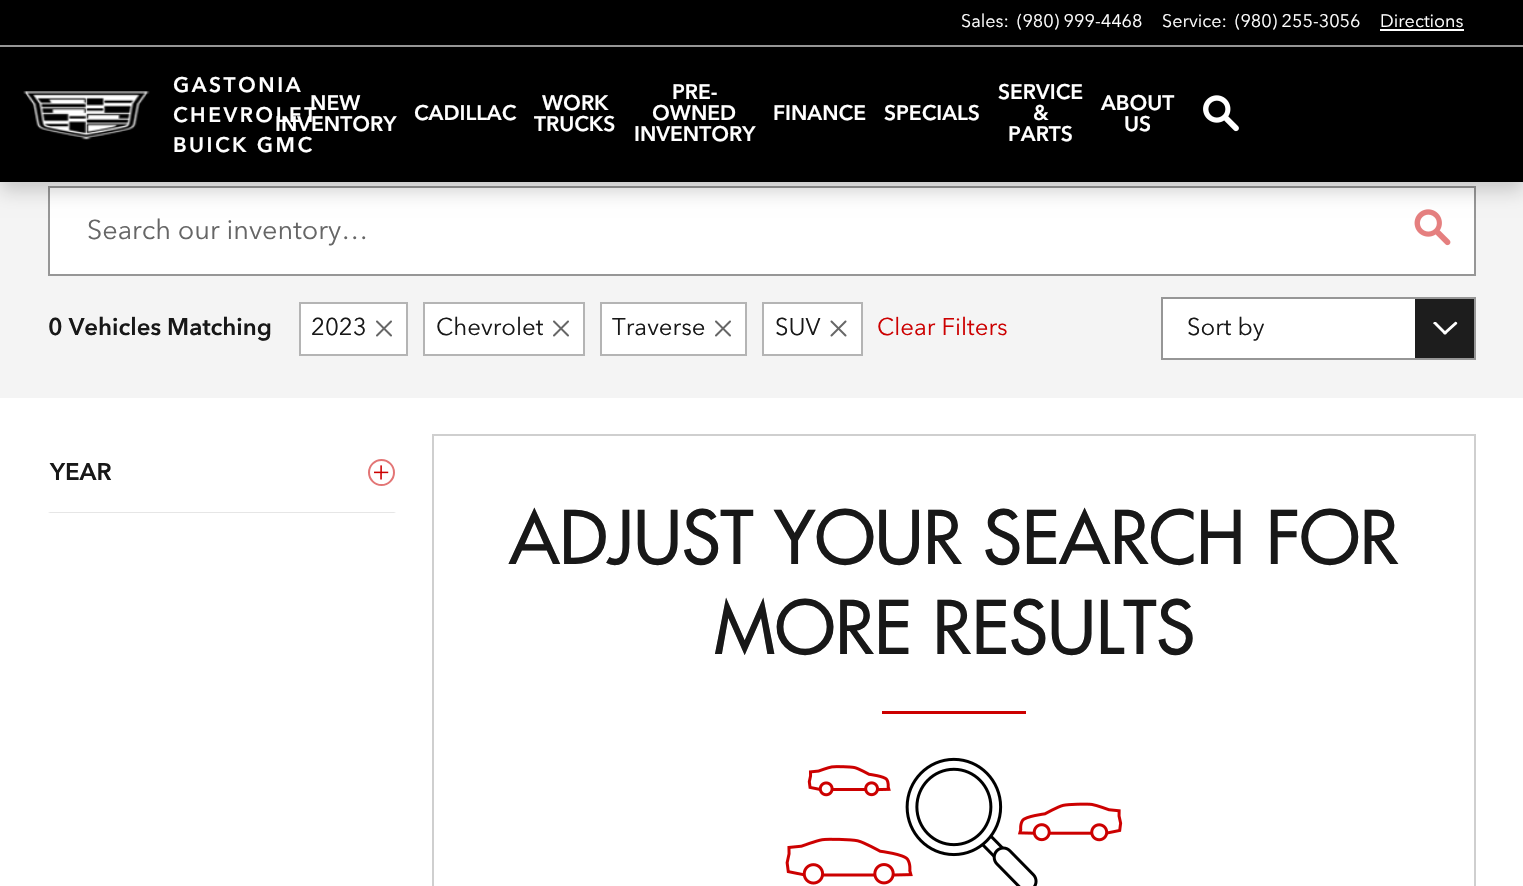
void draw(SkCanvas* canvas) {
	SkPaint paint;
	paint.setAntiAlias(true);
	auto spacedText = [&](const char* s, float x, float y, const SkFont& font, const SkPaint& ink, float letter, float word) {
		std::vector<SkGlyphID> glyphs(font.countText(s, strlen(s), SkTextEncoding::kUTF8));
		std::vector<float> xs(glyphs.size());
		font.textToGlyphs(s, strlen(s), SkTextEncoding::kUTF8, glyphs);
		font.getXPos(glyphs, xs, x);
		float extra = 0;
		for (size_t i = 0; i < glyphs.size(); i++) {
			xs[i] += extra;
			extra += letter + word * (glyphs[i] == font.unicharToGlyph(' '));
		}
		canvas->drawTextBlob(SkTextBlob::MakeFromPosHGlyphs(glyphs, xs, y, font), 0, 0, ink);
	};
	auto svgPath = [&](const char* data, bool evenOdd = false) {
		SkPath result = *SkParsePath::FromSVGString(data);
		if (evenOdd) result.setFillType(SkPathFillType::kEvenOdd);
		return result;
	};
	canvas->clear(0xffffffff);
	paint.setColor(0xfff4f4f4);
	canvas->drawRect(SkRect::MakeXYWH(0, 182, 1523, 216), paint);
	paint.setColor(0xffffffff);
	canvas->drawRect(SkRect::MakeXYWH(49, 187, 1426, 88), paint);
	paint.setStroke(true);
	paint.setStrokeWidth(2);
	paint.setColor(0xff969696);
	canvas->drawRect(SkRect::MakeXYWH(49, 187, 1426, 88), paint);
	canvas->drawImageRect(SkImages::DeferredFromEncodedData(SkData::MakeFromFileName("img3.png")), SkRect::MakeXYWH(1414, 209, 37, 37), SkSamplingOptions());
	paint.setStroke(false);
	paint.setColor(0x2e000000);
	paint.setMaskFilter(SkMaskFilter::MakeBlur(kNormal_SkBlurStyle, 9));
	canvas->drawRect(SkRect::MakeXYWH(0, 9, 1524, 182), paint);
	paint.setMaskFilter(nullptr);
	paint.setColor(0xff000000);
	canvas->drawRect(SkRect::MakeXYWH(0, 0, 1523, 182), paint);
	paint.setColor(0xff969696);
	canvas->drawRect(SkRect::MakeXYWH(0, 45, 1523, 2), paint);
	SkFont f1(fontMgr->matchFamilyStyle("Avenir Next", SkFontStyle::Normal()), 18);
	f1.setSubpixel(true);
	paint.setColor(0xffffffff);
	canvas->drawString("Sales:", 961, 27, f1, paint);
	canvas->drawString("(980) 999-4468", 1017, 27, f1, paint);
	canvas->drawString("Service:", 1162, 27, f1, paint);
	canvas->drawString("(980) 255-3056", 1235, 27, f1, paint);
	canvas->drawString("Directions", 1380, 27, f1, paint);
	canvas->drawRect(SkRect::MakeXYWH(1380, 29, 84, 2), paint);
	canvas->drawImageRect(SkImages::DeferredFromEncodedData(SkData::MakeFromFileName("img1.png")), SkRect::MakeXYWH(23, 91, 127, 49), SkSamplingOptions());
	SkFont f2(fontMgr->matchFamilyStyle("Avenir Next", SkFontStyle(600, SkFontStyle::kNormal_Width, SkFontStyle::kUpright_Slant)), 21);
	f2.setSubpixel(true);
	spacedText("GASTONIA", 173, 92, f2, paint, 2.5, 0);
	spacedText("CHEVROLET", 173, 122, f2, paint, 2.5, 0);
	spacedText("BUICK GMC", 173, 152, f2, paint, 2.5, 0);
	canvas->drawString("NEW", 310, 110, f2, paint);
	canvas->drawString("INVENTORY", 275, 131, f2, paint);
	canvas->drawString("CADILLAC", 414, 120, f2, paint);
	canvas->drawString("WORK", 542, 110, f2, paint);
	canvas->drawString("TRUCKS", 534, 131, f2, paint);
	canvas->drawString("PRE-", 672, 99, f2, paint);
	canvas->drawString("OWNED", 652, 120, f2, paint);
	canvas->drawString("INVENTORY", 634, 141, f2, paint);
	canvas->drawString("FINANCE", 773, 120, f2, paint);
	canvas->drawString("SPECIALS", 884, 120, f2, paint);
	canvas->drawString("SERVICE", 998, 99, f2, paint);
	canvas->drawString("&", 1033, 120, f2, paint);
	canvas->drawString("PARTS", 1008, 141, f2, paint);
	canvas->drawString("ABOUT", 1101, 110, f2, paint);
	canvas->drawString("US", 1124, 131, f2, paint);
	canvas->drawImageRect(SkImages::DeferredFromEncodedData(SkData::MakeFromFileName("img2.png")), SkRect::MakeXYWH(1203, 95, 36, 37), SkSamplingOptions());
	SkFont f3(fontMgr->matchFamilyStyle("Avenir Next", SkFontStyle::Normal()), 27);
	f3.setSubpixel(true);
	paint.setColor(0xff666666);
	canvas->drawString("Search our inventory…", 87, 239, f3, paint);
	SkFont f4(fontMgr->matchFamilyStyle("Avenir Next", SkFontStyle(600, SkFontStyle::kNormal_Width, SkFontStyle::kUpright_Slant)), 24);
	f4.setSubpixel(true);
	paint.setColor(0xff181818);
	canvas->drawString("0 Vehicles Matching", 48, 335, f4, paint);
	paint.setColor(0xffffffff);
	canvas->drawRect(SkRect::MakeXYWH(300, 303, 107, 52), paint);
	paint.setStroke(true);
	paint.setColor(0xffb4b4b4);
	canvas->drawRect(SkRect::MakeXYWH(300, 303, 107, 52), paint);
	SkFont f5(fontMgr->matchFamilyStyle("Avenir Next", SkFontStyle::Normal()), 24);
	f5.setSubpixel(true);
	paint.setStroke(false);
	paint.setColor(0xff181818);
	canvas->drawString("2023", 311, 335, f5, paint);
	canvas->drawImageRect(SkImages::DeferredFromEncodedData(SkData::MakeFromFileName("img4.png")), SkRect::MakeXYWH(376, 320, 16, 17), SkSamplingOptions());
	paint.setColor(0xffffffff);
	canvas->drawRect(SkRect::MakeXYWH(424, 303, 160, 52), paint);
	paint.setStroke(true);
	paint.setColor(0xffb4b4b4);
	canvas->drawRect(SkRect::MakeXYWH(424, 303, 160, 52), paint);
	paint.setStroke(false);
	paint.setColor(0xff181818);
	canvas->drawString("Chevrolet", 436, 335, f5, paint);
	canvas->drawImageRect(SkImages::DeferredFromEncodedData(SkData::MakeFromFileName("img4.png")), SkRect::MakeXYWH(553, 320, 16, 17), SkSamplingOptions());
	paint.setColor(0xffffffff);
	canvas->drawRect(SkRect::MakeXYWH(601, 303, 145, 52), paint);
	paint.setStroke(true);
	paint.setColor(0xffb4b4b4);
	canvas->drawRect(SkRect::MakeXYWH(601, 303, 145, 52), paint);
	paint.setStroke(false);
	paint.setColor(0xff181818);
	canvas->drawString("Traverse", 612, 335, f5, paint);
	canvas->drawImageRect(SkImages::DeferredFromEncodedData(SkData::MakeFromFileName("img4.png")), SkRect::MakeXYWH(715, 320, 16, 17), SkSamplingOptions());
	paint.setColor(0xffffffff);
	canvas->drawRect(SkRect::MakeXYWH(763, 303, 99, 52), paint);
	paint.setStroke(true);
	paint.setColor(0xffb4b4b4);
	canvas->drawRect(SkRect::MakeXYWH(763, 303, 99, 52), paint);
	paint.setStroke(false);
	paint.setColor(0xff181818);
	canvas->drawString("SUV", 775, 335, f5, paint);
	canvas->drawImageRect(SkImages::DeferredFromEncodedData(SkData::MakeFromFileName("img5.png")), SkRect::MakeXYWH(830, 320, 17, 17), SkSamplingOptions());
	paint.setColor(0xffcc0000);
	canvas->drawString("Clear Filters", 877, 335, f5, paint);
	paint.setColor(0xffffffff);
	canvas->drawRect(SkRect::MakeXYWH(1163, 299, 295, 59), paint);
	canvas->save();
	canvas->clipRect(SkRect::MakeXYWH(1415, 299, 60, 60));
	paint.setColor(0xff1d1d1d);
	canvas->drawPath(svgPath("M1414 298V358H1474V298ZM1457 324L1447 333C1446 335 1444 335 1443 333L1434 324C1433 324 1433 323 1434 322C1434 322 1435 322 1436 322L1445 331L1455 322C1456 321 1458 323 1457 324Z"), paint);
	canvas->restore();
	paint.setStroke(true);
	paint.setColor(0xff969696);
	canvas->drawRect(SkRect::MakeXYWH(1162, 298, 313, 61), paint);
	paint.setStroke(false);
	paint.setColor(0xff181818);
	canvas->drawString("Sort by", 1187, 335, f5, paint);
	paint.setColor(0xffe6e6e6);
	canvas->drawPath(svgPath("M396 513H48L50 512H394Z"), paint);
	paint.setColor(0xff181818);
	canvas->drawString("YEAR", 50, 480, f4, paint);
	paint.setStroke(true);
	paint.setColor(0xffe37575);
	canvas->drawCircle(381.5, 472.5, 12.5, paint);
	canvas->drawImageRect(SkImages::DeferredFromEncodedData(SkData::MakeFromFileName("img6.png")), SkRect::MakeXYWH(374, 465, 15, 15), SkSamplingOptions());
	paint.setColor(0xffcfcfcf);
	canvas->drawRect(SkRect::MakeXYWH(433, 435, 1042, 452), paint);
	SkFont f6(fontMgr->matchFamilyStyle("Futura", SkFontStyle(500, SkFontStyle::kNormal_Width, SkFontStyle::kUpright_Slant)), 72);
	f6.setSubpixel(true);
	paint.setStroke(false);
	paint.setColor(0xff181818);
	canvas->drawString("ADJUST YOUR SEARCH FOR", 509, 564, f6, paint);
	canvas->drawString("MORE RESULTS", 714, 654, f6, paint);
	paint.setColor(0xffcc0000);
	canvas->drawRect(SkRect::MakeXYWH(882, 711, 144, 3), paint);
	canvas->drawImageRect(SkImages::DeferredFromEncodedData(SkData::MakeFromFileName("img7.png")), SkRect::MakeXYWH(785, 757, 338, 129), SkSamplingOptions());
}
